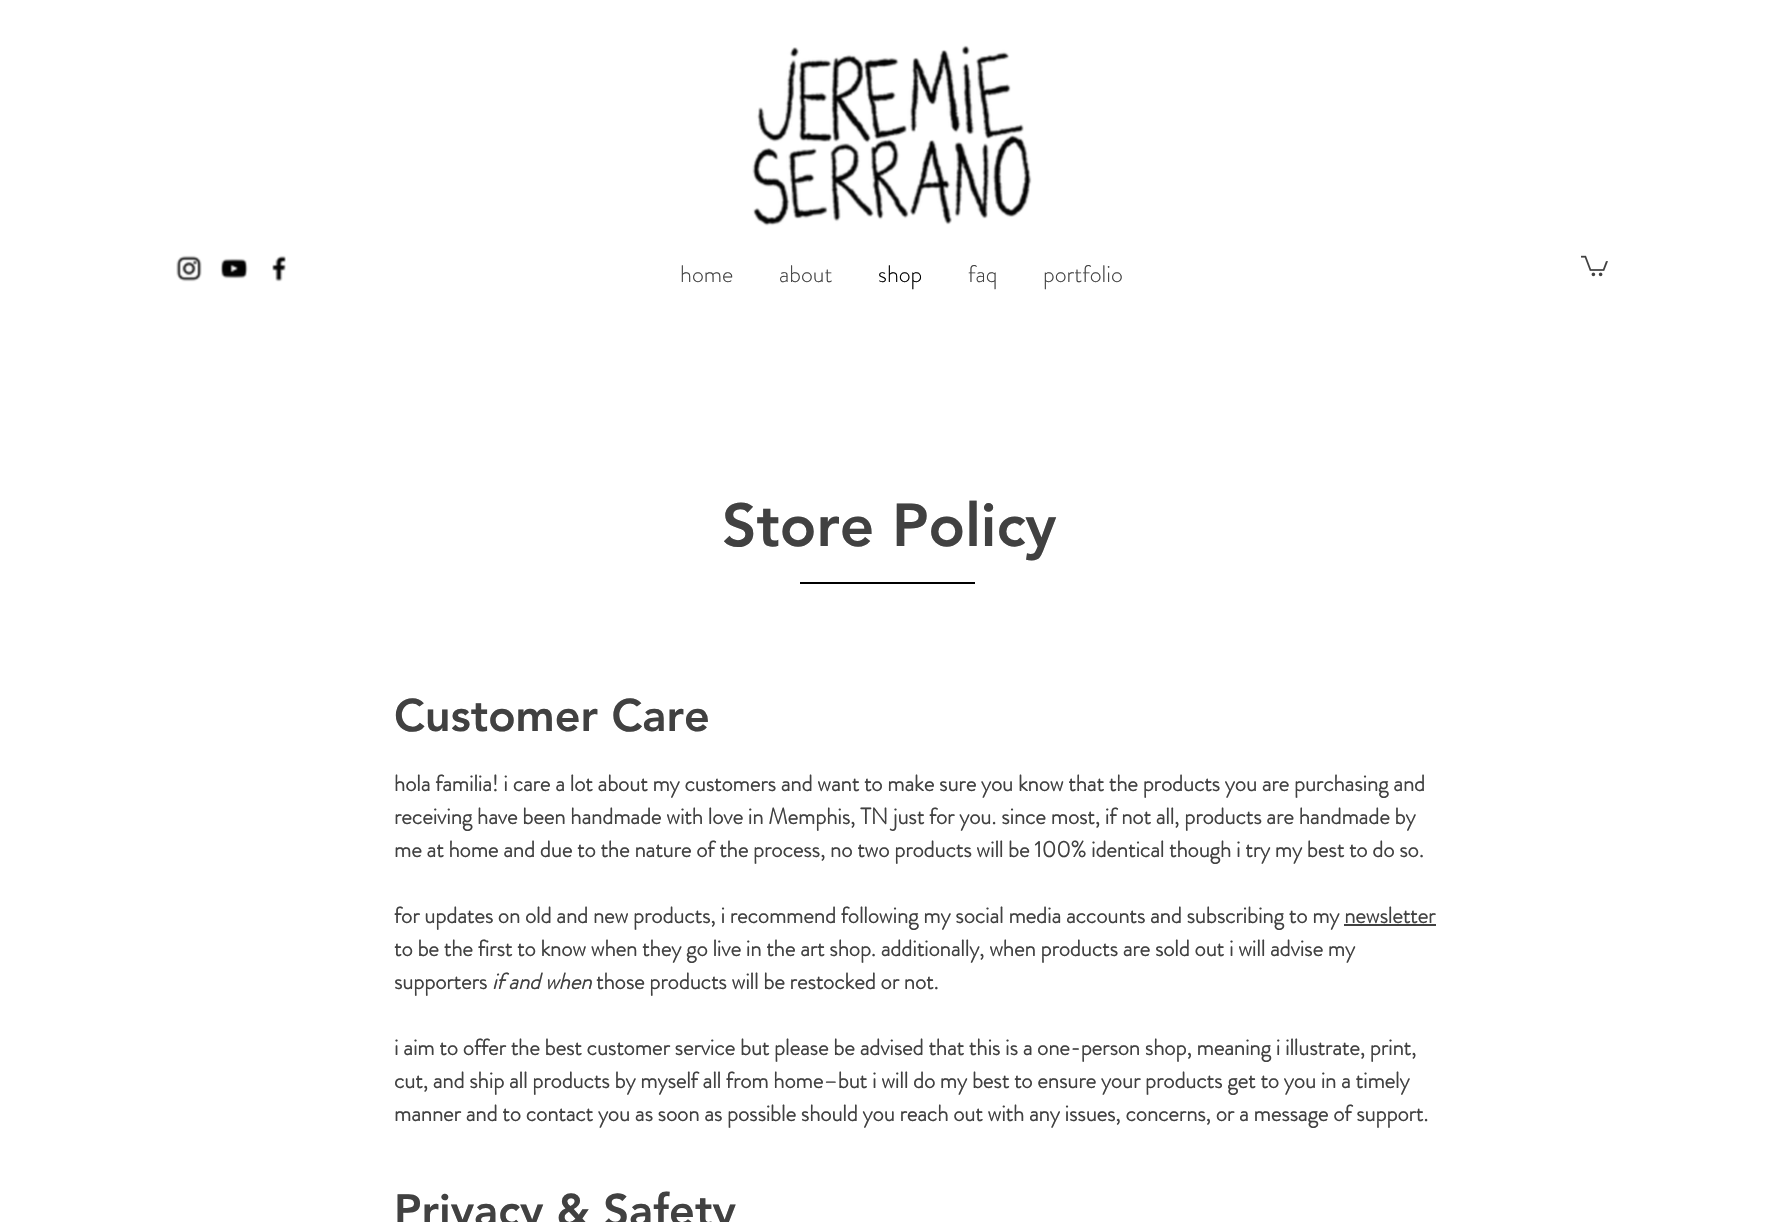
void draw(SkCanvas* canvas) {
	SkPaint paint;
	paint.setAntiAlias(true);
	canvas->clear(0xffffffff);
	canvas->drawImageRect(SkImages::DeferredFromEncodedData(SkData::MakeFromFileName("img1.png")), SkRect::MakeXYWH(752, 45, 280, 181), SkSamplingOptions());
	canvas->drawImageRect(SkImages::DeferredFromEncodedData(SkData::MakeFromFileName("img2.png")), SkRect::MakeXYWH(176, 255, 26, 27), SkSamplingOptions());
	canvas->drawImageRect(SkImages::DeferredFromEncodedData(SkData::MakeFromFileName("img3.png")), SkRect::MakeXYWH(220, 258, 28, 21), SkSamplingOptions());
	canvas->drawImageRect(SkImages::DeferredFromEncodedData(SkData::MakeFromFileName("img4.png")), SkRect::MakeXYWH(272, 255, 14, 27), SkSamplingOptions());
	SkFont f1(fontMgr->matchFamilyStyle("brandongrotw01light", SkFontStyle(300, SkFontStyle::kNormal_Width, SkFontStyle::kUpright_Slant)), 24);
	f1.setSubpixel(true);
	paint.setColor(0xff414141);
	canvas->drawString("home", 680, 282, f1, paint);
	canvas->drawString("about", 779, 282, f1, paint);
	paint.setColor(0xff000000);
	canvas->drawString("shop", 878, 282, f1, paint);
	paint.setColor(0xff414141);
	canvas->drawString("faq", 968, 282, f1, paint);
	canvas->drawString("portfolio", 1043, 282, f1, paint);
	canvas->drawImageRect(SkImages::DeferredFromEncodedData(SkData::MakeFromFileName("img5.png")), SkRect::MakeXYWH(1581, 255, 27, 22), SkSamplingOptions());
	SkFont f2(fontMgr->matchFamilyStyle("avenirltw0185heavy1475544", SkFontStyle(900, SkFontStyle::kNormal_Width, SkFontStyle::kUpright_Slant)), 60);
	f2.setSubpixel(true);
	canvas->drawString("Store Policy", 722, 546, f2, paint);
	paint.setColor(0xff000000);
	canvas->drawRect(SkRect::MakeXYWH(800, 582, 175, 2), paint);
	SkFont f3(fontMgr->matchFamilyStyle("avenirltw0185heavy1475544", SkFontStyle(900, SkFontStyle::kNormal_Width, SkFontStyle::kUpright_Slant)), 45);
	f3.setSubpixel(true);
	paint.setColor(0xff414141);
	canvas->drawString("Customer Care", 394, 731, f3, paint);
	SkFont f4(fontMgr->matchFamilyStyle("brandongrotw01light", SkFontStyle::Bold()), 22.5);
	f4.setSubpixel(true);
	canvas->drawString("hola familia! i care a lot about my customers and want to make sure you know that the products you are purchasing and", 394, 791, f4, paint);
	canvas->drawString("receiving have been handmade with love in Memphis, TN just for you. since most, if not all, products are handmade by", 394, 824, f4, paint);
	canvas->drawString("me at home and due to the nature of the process, no two products will be 100% identical though i try my best to do so.", 394, 857, f4, paint);
	canvas->drawString("for updates on old and new products, i recommend following my social media accounts and subscribing to my newsletter", 394, 923, f4, paint);
	canvas->drawRect(SkRect::MakeXYWH(1344, 924, 92, 2), paint);
	canvas->drawString("to be the first to know when they go live in the art shop. additionally, when products are sold out i will advise my", 394, 956, f4, paint);
	canvas->drawString("supporters", 394, 989, f4, paint);
	SkFont f5(fontMgr->matchFamilyStyle("brandongrotw01light", SkFontStyle::BoldItalic()), 22.5);
	f5.setSubpixel(true);
	canvas->drawString("if and when", 492, 989, f5, paint);
	canvas->drawString("those products will be restocked or not.", 596, 989, f4, paint);
	canvas->drawString("i aim to offer the best customer service but please be advised that this is a one-person shop, meaning i illustrate, print,", 394, 1055, f4, paint);
	canvas->drawString("cut, and ship all products by myself all from home–but i will do my best to ensure your products get to you in a timely", 394, 1088, f4, paint);
	canvas->drawString("manner and to contact you as soon as possible should you reach out with any issues, concerns, or a message of support.", 394, 1121, f4, paint);
	canvas->drawString("Privacy & Safety", 394, 1226, f3, paint);
}
